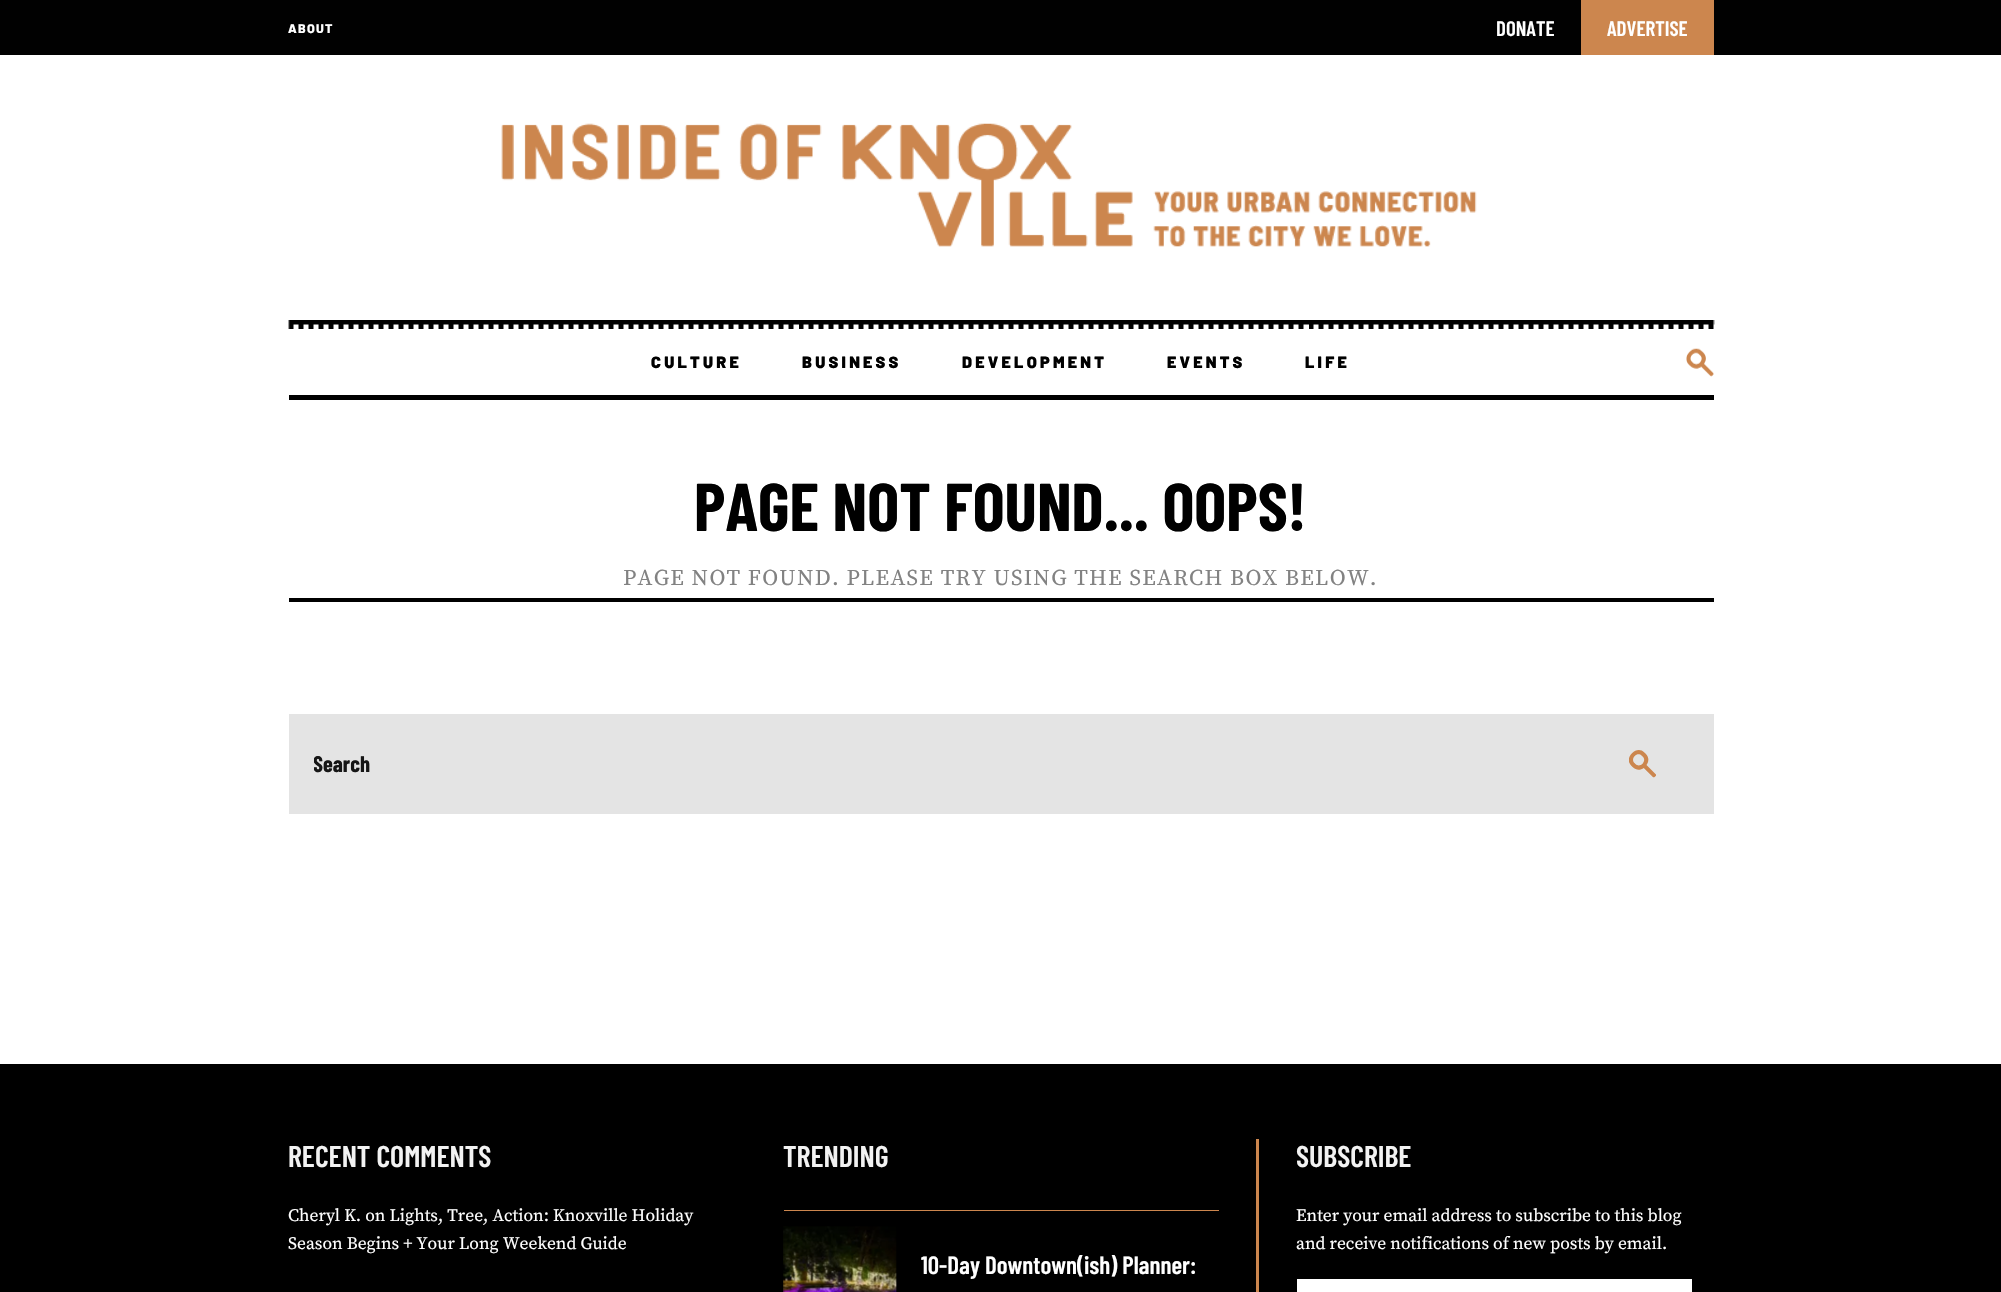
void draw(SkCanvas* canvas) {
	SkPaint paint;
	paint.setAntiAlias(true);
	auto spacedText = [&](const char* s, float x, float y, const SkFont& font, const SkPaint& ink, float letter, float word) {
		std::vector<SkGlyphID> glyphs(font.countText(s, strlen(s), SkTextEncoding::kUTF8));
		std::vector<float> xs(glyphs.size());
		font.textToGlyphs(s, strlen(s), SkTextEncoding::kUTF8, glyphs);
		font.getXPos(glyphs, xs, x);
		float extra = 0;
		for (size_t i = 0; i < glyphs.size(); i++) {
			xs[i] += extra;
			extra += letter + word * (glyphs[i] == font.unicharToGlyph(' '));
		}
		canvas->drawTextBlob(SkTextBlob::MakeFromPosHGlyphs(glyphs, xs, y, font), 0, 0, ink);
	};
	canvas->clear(0xffffffff);
	paint.setColor(0xff010101);
	canvas->drawRect(SkRect::MakeXYWH(0, 0, 2001, 55), paint);
	SkFont f1(fontMgr->matchFamilyStyle("Barlow", SkFontStyle(800, SkFontStyle::kNormal_Width, SkFontStyle::kUpright_Slant)), 12.5);
	f1.setSubpixel(true);
	paint.setColor(0xffffffff);
	spacedText("ABOUT", 288, 33, f1, paint, 1.25, 0);
	SkFont f2(fontMgr->matchFamilyStyle("Barlow Condensed", SkFontStyle(600, SkFontStyle::kNormal_Width, SkFontStyle::kUpright_Slant)), 21);
	f2.setSubpixel(true);
	canvas->drawString("DONATE", 1496, 36, f2, paint);
	paint.setColor(0xffcc864e);
	canvas->drawRect(SkRect::MakeXYWH(1581, 0, 133, 55), paint);
	paint.setColor(0xffffffff);
	canvas->drawString("ADVERTISE", 1607, 36, f2, paint);
	canvas->drawImageRect(SkImages::DeferredFromEncodedData(SkData::MakeFromFileName("img1.png")), SkRect::MakeXYWH(501, 123, 976, 124), SkSamplingOptions());
	paint.setColor(0xff000000);
	canvas->drawRect(SkRect::MakeXYWH(289, 395, 1425, 5), paint);
	canvas->drawImageRect(SkImages::DeferredFromEncodedData(SkData::MakeFromFileName("img2.png")), SkRect::MakeXYWH(288, 320, 1427, 9), SkSamplingOptions());
	SkFont f3(fontMgr->matchFamilyStyle("Barlow", SkFontStyle(900, SkFontStyle::kNormal_Width, SkFontStyle::kUpright_Slant)), 16.25);
	f3.setSubpixel(true);
	spacedText("CULTURE", 651, 368, f3, paint, 3.25, 0);
	spacedText("BUSINESS", 802, 368, f3, paint, 3.25, 0);
	spacedText("DEVELOPMENT", 962, 368, f3, paint, 3.25, 0);
	spacedText("EVENTS", 1167, 368, f3, paint, 3.25, 0);
	spacedText("LIFE", 1305, 368, f3, paint, 3.25, 0);
	canvas->drawImageRect(SkImages::DeferredFromEncodedData(SkData::MakeFromFileName("img3.png")), SkRect::MakeXYWH(1686, 348, 28, 29), SkSamplingOptions());
	canvas->drawRect(SkRect::MakeXYWH(289, 598, 1425, 4), paint);
	SkFont f4(fontMgr->matchFamilyStyle("Barlow Condensed", SkFontStyle::Bold()), 67.5);
	f4.setSubpixel(true);
	canvas->drawString("PAGE NOT FOUND... OOPS!", 694, 531, f4, paint);
	SkFont f5(fontMgr->matchFamilyStyle("Source Serif Pro", SkFontStyle::Normal()), 22.5);
	f5.setSubpixel(true);
	paint.setColor(0xff828282);
	spacedText("PAGE NOT FOUND. PLEASE TRY USING THE SEARCH BOX BELOW.", 623, 585, f5, paint, 1.25, 0);
	paint.setColor(0xffe4e4e4);
	canvas->drawRect(SkRect::MakeXYWH(289, 714, 1425, 100), paint);
	canvas->save();
	canvas->clipRect(SkRect::MakeXYWH(314, 750, 1295, 28));
	SkFont f6(fontMgr->matchFamilyStyle("Barlow Condensed", SkFontStyle::Bold()), 22.5);
	f6.setSubpixel(true);
	paint.setColor(0xff161616);
	canvas->drawString("Search", 313, 772, f6, paint);
	canvas->restore();
	canvas->drawImageRect(SkImages::DeferredFromEncodedData(SkData::MakeFromFileName("img4.png")), SkRect::MakeXYWH(1629, 750, 27, 28), SkSamplingOptions());
	paint.setColor(0xff000000);
	canvas->drawRect(SkRect::MakeXYWH(0, 1064, 2001, 228), paint);
	SkFont f7(fontMgr->matchFamilyStyle("Barlow Condensed", SkFontStyle(600, SkFontStyle::kNormal_Width, SkFontStyle::kUpright_Slant)), 30);
	f7.setSubpixel(true);
	paint.setColor(0xfff2f2f2);
	canvas->drawString("RECENT COMMENTS", 288, 1167, f7, paint);
	SkFont f8(fontMgr->matchFamilyStyle("Source Serif Pro", SkFontStyle::Normal()), 17.5);
	f8.setSubpixel(true);
	paint.setColor(0xffffffff);
	canvas->drawString("Cheryl K. on Lights, Tree, Action: Knoxville Holiday", 288, 1221, f8, paint);
	canvas->drawString("Season Begins + Your Long Weekend Guide", 288, 1249, f8, paint);
	paint.setColor(0xfff2f2f2);
	canvas->drawString("TRENDING", 783, 1167, f7, paint);
	paint.setColor(0xffcc864e);
	canvas->drawRect(SkRect::MakeXYWH(784, 1210, 435, 1), paint);
	canvas->drawImageRect(SkImages::DeferredFromEncodedData(SkData::MakeFromFileName("img5.png")), SkRect::MakeXYWH(783, 1226, 114, 66), SkSamplingOptions());
	SkFont f9(fontMgr->matchFamilyStyle("Barlow Condensed", SkFontStyle(600, SkFontStyle::kNormal_Width, SkFontStyle::kUpright_Slant)), 25);
	f9.setSubpixel(true);
	paint.setColor(0xffffffff);
	canvas->drawString("10-Day Downtown(ish) Planner:", 921, 1274, f9, paint);
	paint.setColor(0xffcc864e);
	canvas->drawRect(SkRect::MakeXYWH(1256, 1139, 3, 153), paint);
	paint.setColor(0xfff2f2f2);
	canvas->drawString("SUBSCRIBE", 1296, 1167, f7, paint);
	paint.setColor(0xffffffff);
	canvas->drawString("Enter your email address to subscribe to this blog", 1296, 1221, f8, paint);
	canvas->drawString("and receive notifications of new posts by email.", 1296, 1249, f8, paint);
	canvas->drawRect(SkRect::MakeXYWH(1297, 1279, 395, 13), paint);
}
